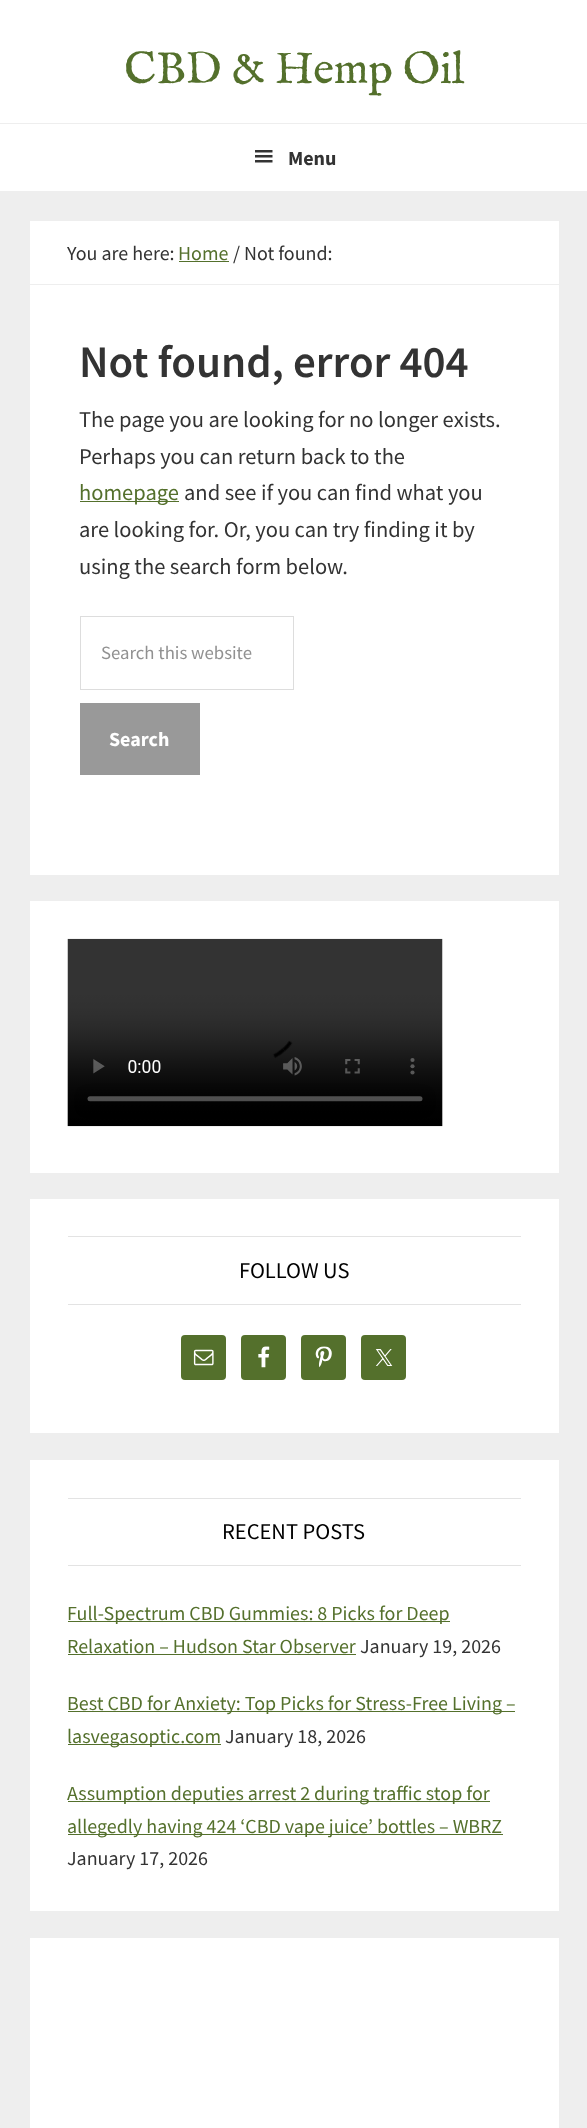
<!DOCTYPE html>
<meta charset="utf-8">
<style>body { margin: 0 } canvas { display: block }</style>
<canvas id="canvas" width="587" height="2128"></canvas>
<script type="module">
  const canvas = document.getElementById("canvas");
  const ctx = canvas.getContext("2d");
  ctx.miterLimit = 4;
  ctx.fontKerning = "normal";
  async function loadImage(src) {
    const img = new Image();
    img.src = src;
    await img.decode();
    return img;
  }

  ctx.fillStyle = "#eeeeee";
  ctx.fillRect(0, 0, 587, 2128);
  ctx.fillStyle = "#ffffff";
  ctx.fillRect(0, 0, 587, 123);
  ctx.font = "45px IM FELL English";
  ctx.fillStyle = "#54702c";
  ctx.fillText("CBD & Hemp Oil", 124, 83);
  ctx.fillStyle = "#ffffff";
  ctx.fillRect(0, 124, 587, 67);
  ctx.drawImage(await loadImage("img1.png"), 255, 150, 18, 13);
  ctx.font = "bold 20px Source Sans Pro";
  ctx.fillStyle = "#333333";
  ctx.fillText("Menu", 288, 165);
  ctx.fillStyle = "#ffffff";
  ctx.fillRect(30, 221, 529, 63);
  ctx.font = "20px Source Sans Pro";
  ctx.fillStyle = "#333333";
  ctx.fillText("You are here:", 67, 260);
  ctx.fillStyle = "#54702c";
  ctx.fillText("Home", 178, 260);
  ctx.fillRect(179, 261, 50, 1);
  ctx.fillStyle = "#333333";
  ctx.fillText("/ Not found:", 233, 260);
  ctx.fillStyle = "#ffffff";
  ctx.fillRect(30, 285, 529, 590);
  ctx.font = "600 45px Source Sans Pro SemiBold";
  ctx.fillStyle = "#333333";
  ctx.fillText("Not found, error 404", 79, 377);
  ctx.font = "22.5px Source Sans Pro";
  ctx.fillText("The page you are looking for no longer exists.", 79, 427);
  ctx.fillText("Perhaps you can return back to the", 79, 464);
  ctx.fillStyle = "#54702c";
  ctx.fillRect(80, 501, 99, 1);
  ctx.fillText("homepage", 79, 500);
  ctx.fillStyle = "#333333";
  ctx.fillText("and see if you can find what you", 184, 500);
  ctx.fillText("are looking for. Or, you can try finding it by", 79, 537);
  ctx.fillText("using the search form below.", 79, 574);
  ctx.strokeStyle = "#dddddd";
  ctx.strokeRect(80.5, 616.5, 213, 73);
  ctx.font = "18.75px Source Sans Pro";
  ctx.fillStyle = "#919191";
  ctx.fillText("Search this website", 101, 659);
  ctx.fillStyle = "#999999";
  ctx.fillRect(80, 703, 120, 72);
  ctx.font = "bold 20px Source Sans Pro";
  ctx.fillStyle = "#ffffff";
  ctx.fillText("Search", 109, 746);
  ctx.fillRect(30, 901, 529, 272);
  ctx.drawImage(await loadImage("img2.png"), 67, 938, 376, 189);
  ctx.fillRect(30, 1199, 529, 234);
  ctx.fillStyle = "#e3e3e3";
  ctx.fillRect(68, 1236, 453, 1);
  ctx.fillRect(68, 1304, 453, 1);
  ctx.font = "22.5px Source Sans Pro";
  ctx.fillStyle = "#000000";
  ctx.fillText("FOLLOW US", 239, 1278);
  ctx.fillStyle = "#54702c";
  ctx.beginPath();
  ctx.roundRect(181, 1335, 45, 45, 4);
  ctx.fill();
  ctx.drawImage(await loadImage("img3.png"), 193, 1349, 21, 17);
  ctx.beginPath();
  ctx.roundRect(241, 1335, 45, 45, 4);
  ctx.fill();
  ctx.drawImage(await loadImage("img4.png"), 258, 1346, 12, 22);
  ctx.beginPath();
  ctx.roundRect(301, 1335, 45, 45, 4);
  ctx.fill();
  ctx.drawImage(await loadImage("img5.png"), 315, 1346, 17, 22);
  ctx.beginPath();
  ctx.roundRect(361, 1335, 45, 45, 4);
  ctx.fill();
  ctx.drawImage(await loadImage("img6.png"), 375, 1349, 18, 17);
  ctx.fillStyle = "#ffffff";
  ctx.fillRect(30, 1460, 529, 451);
  ctx.fillStyle = "#e3e3e3";
  ctx.fillRect(68, 1498, 453, 1);
  ctx.fillRect(68, 1565, 453, 1);
  ctx.fillStyle = "#000000";
  ctx.fillText("RECENT POSTS", 222, 1539);
  ctx.fillStyle = "#54702c";
  ctx.fillRect(68, 1621, 382, 1);
  ctx.font = "20px Source Sans Pro";
  ctx.fillText("Full-Spectrum CBD Gummies: 8 Picks for Deep", 67, 1620);
  ctx.fillText("Relaxation – Hudson Star Observer", 67, 1653);
  ctx.fillRect(68, 1654, 288, 1);
  ctx.fillStyle = "#333333";
  ctx.fillText("January 19, 2026", 360, 1653);
  ctx.fillStyle = "#54702c";
  ctx.fillRect(68, 1711, 447, 1);
  ctx.fillText("Best CBD for Anxiety: Top Picks for Stress-Free Living –", 67, 1710);
  ctx.fillRect(68, 1744, 153, 1);
  ctx.fillText("lasvegasoptic.com", 67, 1743);
  ctx.fillStyle = "#333333";
  ctx.fillText("January 18, 2026", 225, 1743);
  ctx.fillStyle = "#54702c";
  ctx.fillRect(68, 1801, 422, 1);
  ctx.fillText("Assumption deputies arrest 2 during traffic stop for", 67, 1800);
  ctx.fillRect(68, 1834, 435, 1);
  ctx.fillText("allegedly having 424 ‘CBD vape juice’ bottles – WBRZ", 67, 1833);
  ctx.fillStyle = "#333333";
  ctx.fillText("January 17, 2026", 67, 1865);
  ctx.fillStyle = "#ffffff";
  ctx.fillRect(30, 1938, 529, 190);
</script>
